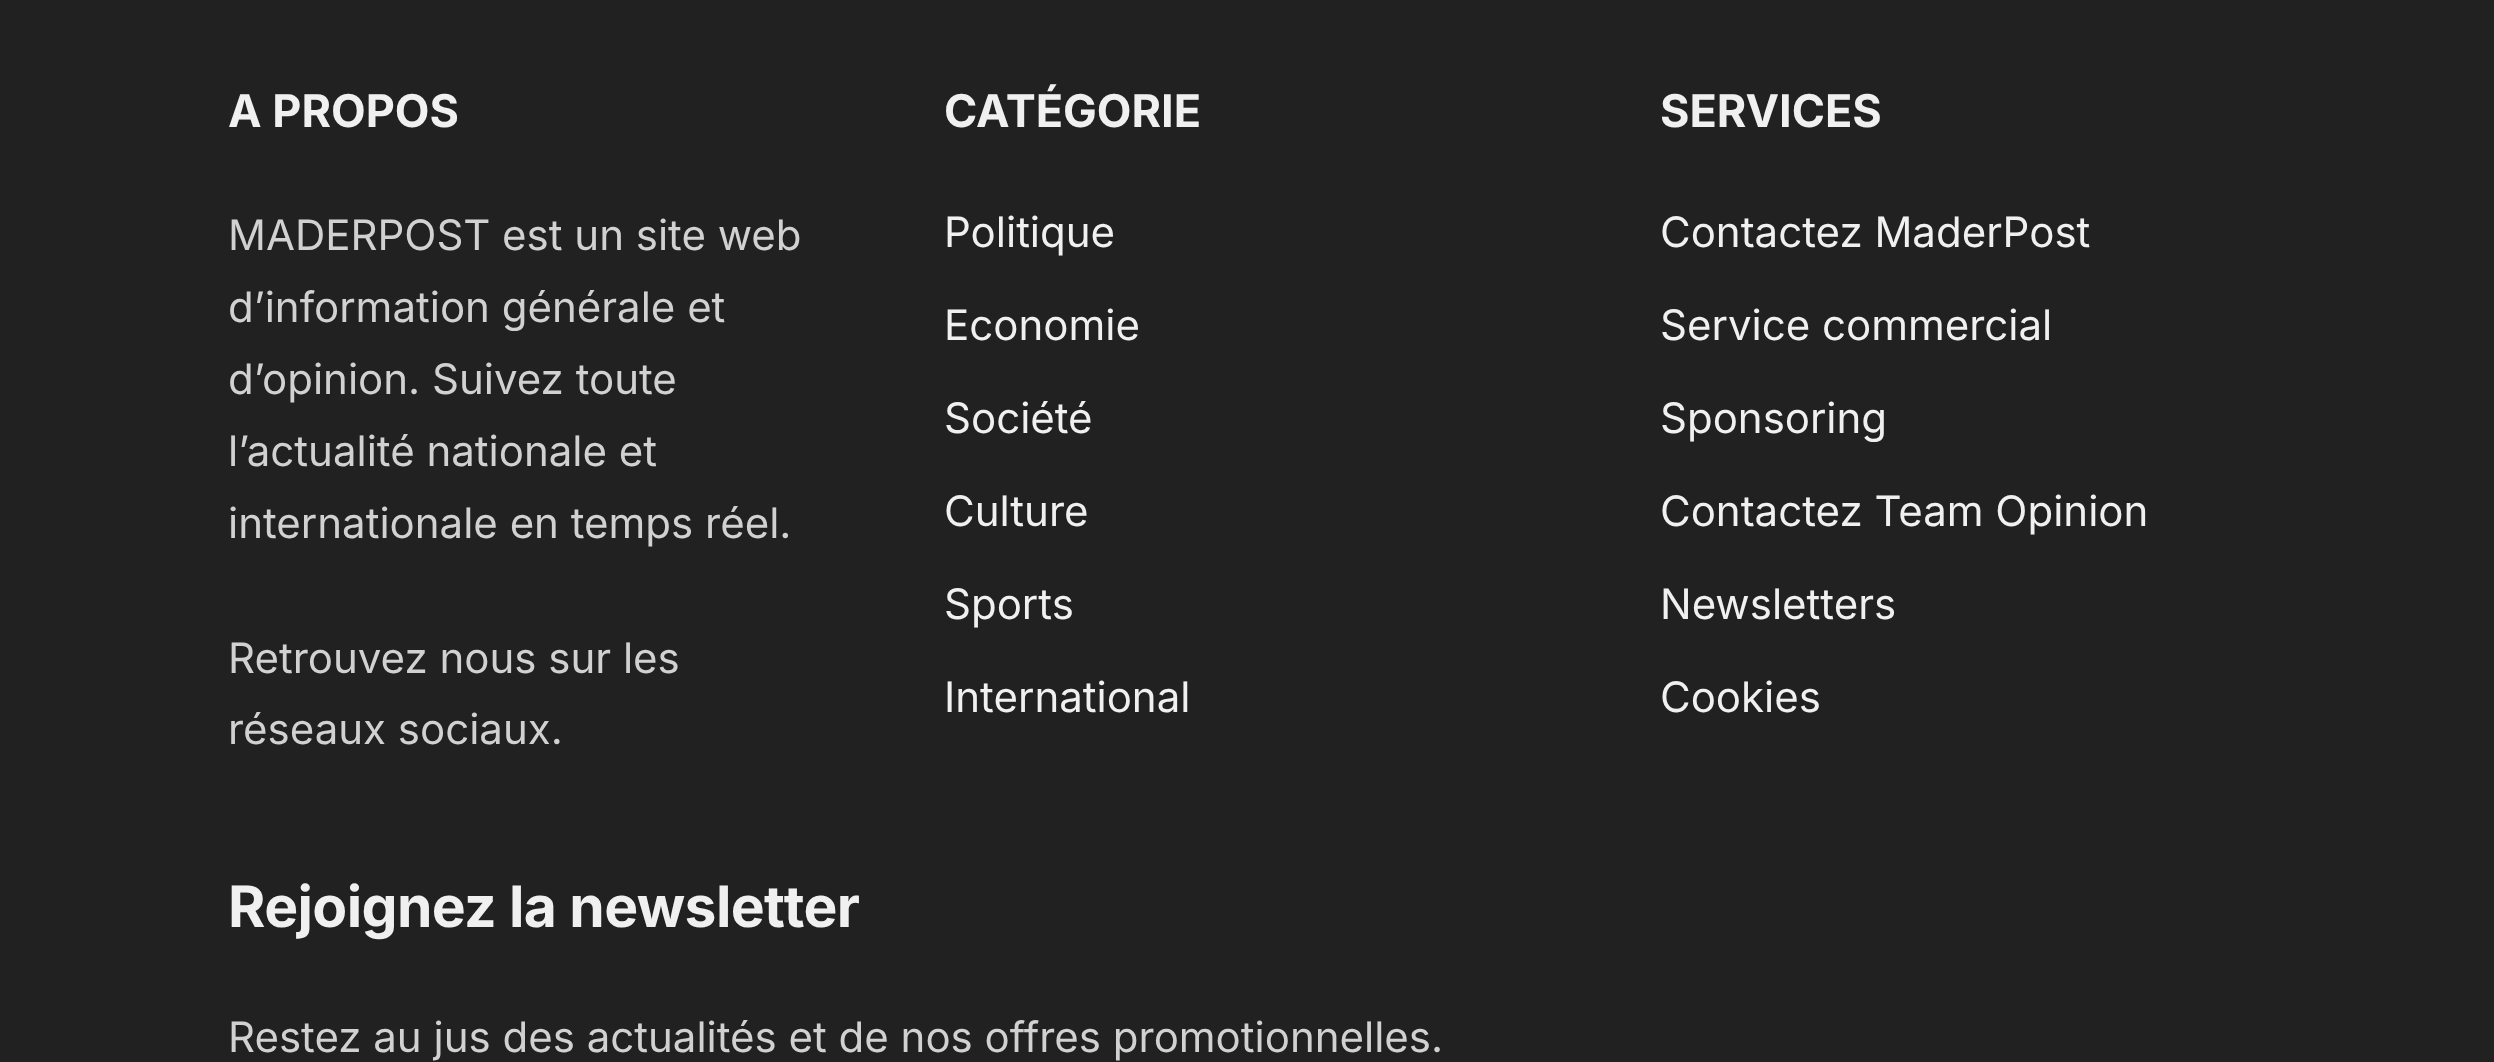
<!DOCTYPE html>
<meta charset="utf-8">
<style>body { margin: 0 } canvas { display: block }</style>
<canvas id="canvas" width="2494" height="1062"></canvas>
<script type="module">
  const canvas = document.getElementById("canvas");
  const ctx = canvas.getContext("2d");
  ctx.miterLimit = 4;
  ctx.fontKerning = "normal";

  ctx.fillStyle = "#212121";
  ctx.fillRect(0, 0, 2494, 1062);
  ctx.font = "bold 45px Inter";
  ctx.fillStyle = "#f0f0f0";
  ctx.fillText("A PROPOS", 228, 127);
  ctx.font = "42px Inter";
  ctx.fillStyle = "#d1d1d1";
  ctx.fillText("MADERPOST est un site web", 228, 250);
  ctx.fillText("d’information générale et", 228, 322);
  ctx.fillText("d’opinion. Suivez toute", 228, 394);
  ctx.fillText("l’actualité nationale et", 228, 466);
  ctx.fillText("internationale en temps réel.", 228, 538);
  ctx.fillText("Retrouvez nous sur les", 228, 673);
  ctx.fillText("réseaux sociaux.", 228, 744);
  ctx.font = "bold 45px Inter";
  ctx.fillStyle = "#f0f0f0";
  ctx.fillText("CATÉGORIE", 944, 127);
  ctx.font = "42px Inter";
  ctx.fillText("Politique", 944, 247);
  ctx.fillText("Economie", 944, 340);
  ctx.fillText("Société", 944, 433);
  ctx.fillText("Culture", 944, 526);
  ctx.fillText("Sports", 944, 619);
  ctx.fillText("International", 944, 712);
  ctx.font = "bold 45px Inter";
  ctx.fillText("SERVICES", 1660, 127);
  ctx.font = "42px Inter";
  ctx.fillText("Contactez MaderPost", 1660, 247);
  ctx.fillText("Service commercial", 1660, 340);
  ctx.fillText("Sponsoring", 1660, 433);
  ctx.fillText("Contactez Team Opinion", 1660, 526);
  ctx.fillText("Newsletters", 1660, 619);
  ctx.fillText("Cookies", 1660, 712);
  ctx.letterSpacing = "-0.6px";
  ctx.font = "bold 57px Inter";
  ctx.fillText("Rejoignez la newsletter", 228, 927);
  ctx.letterSpacing = "0px";
  ctx.font = "42px Inter";
  ctx.fillStyle = "#d1d1d1";
  ctx.fillText("Restez au jus des actualités et de nos offres promotionnelles.", 228, 1052);
</script>
